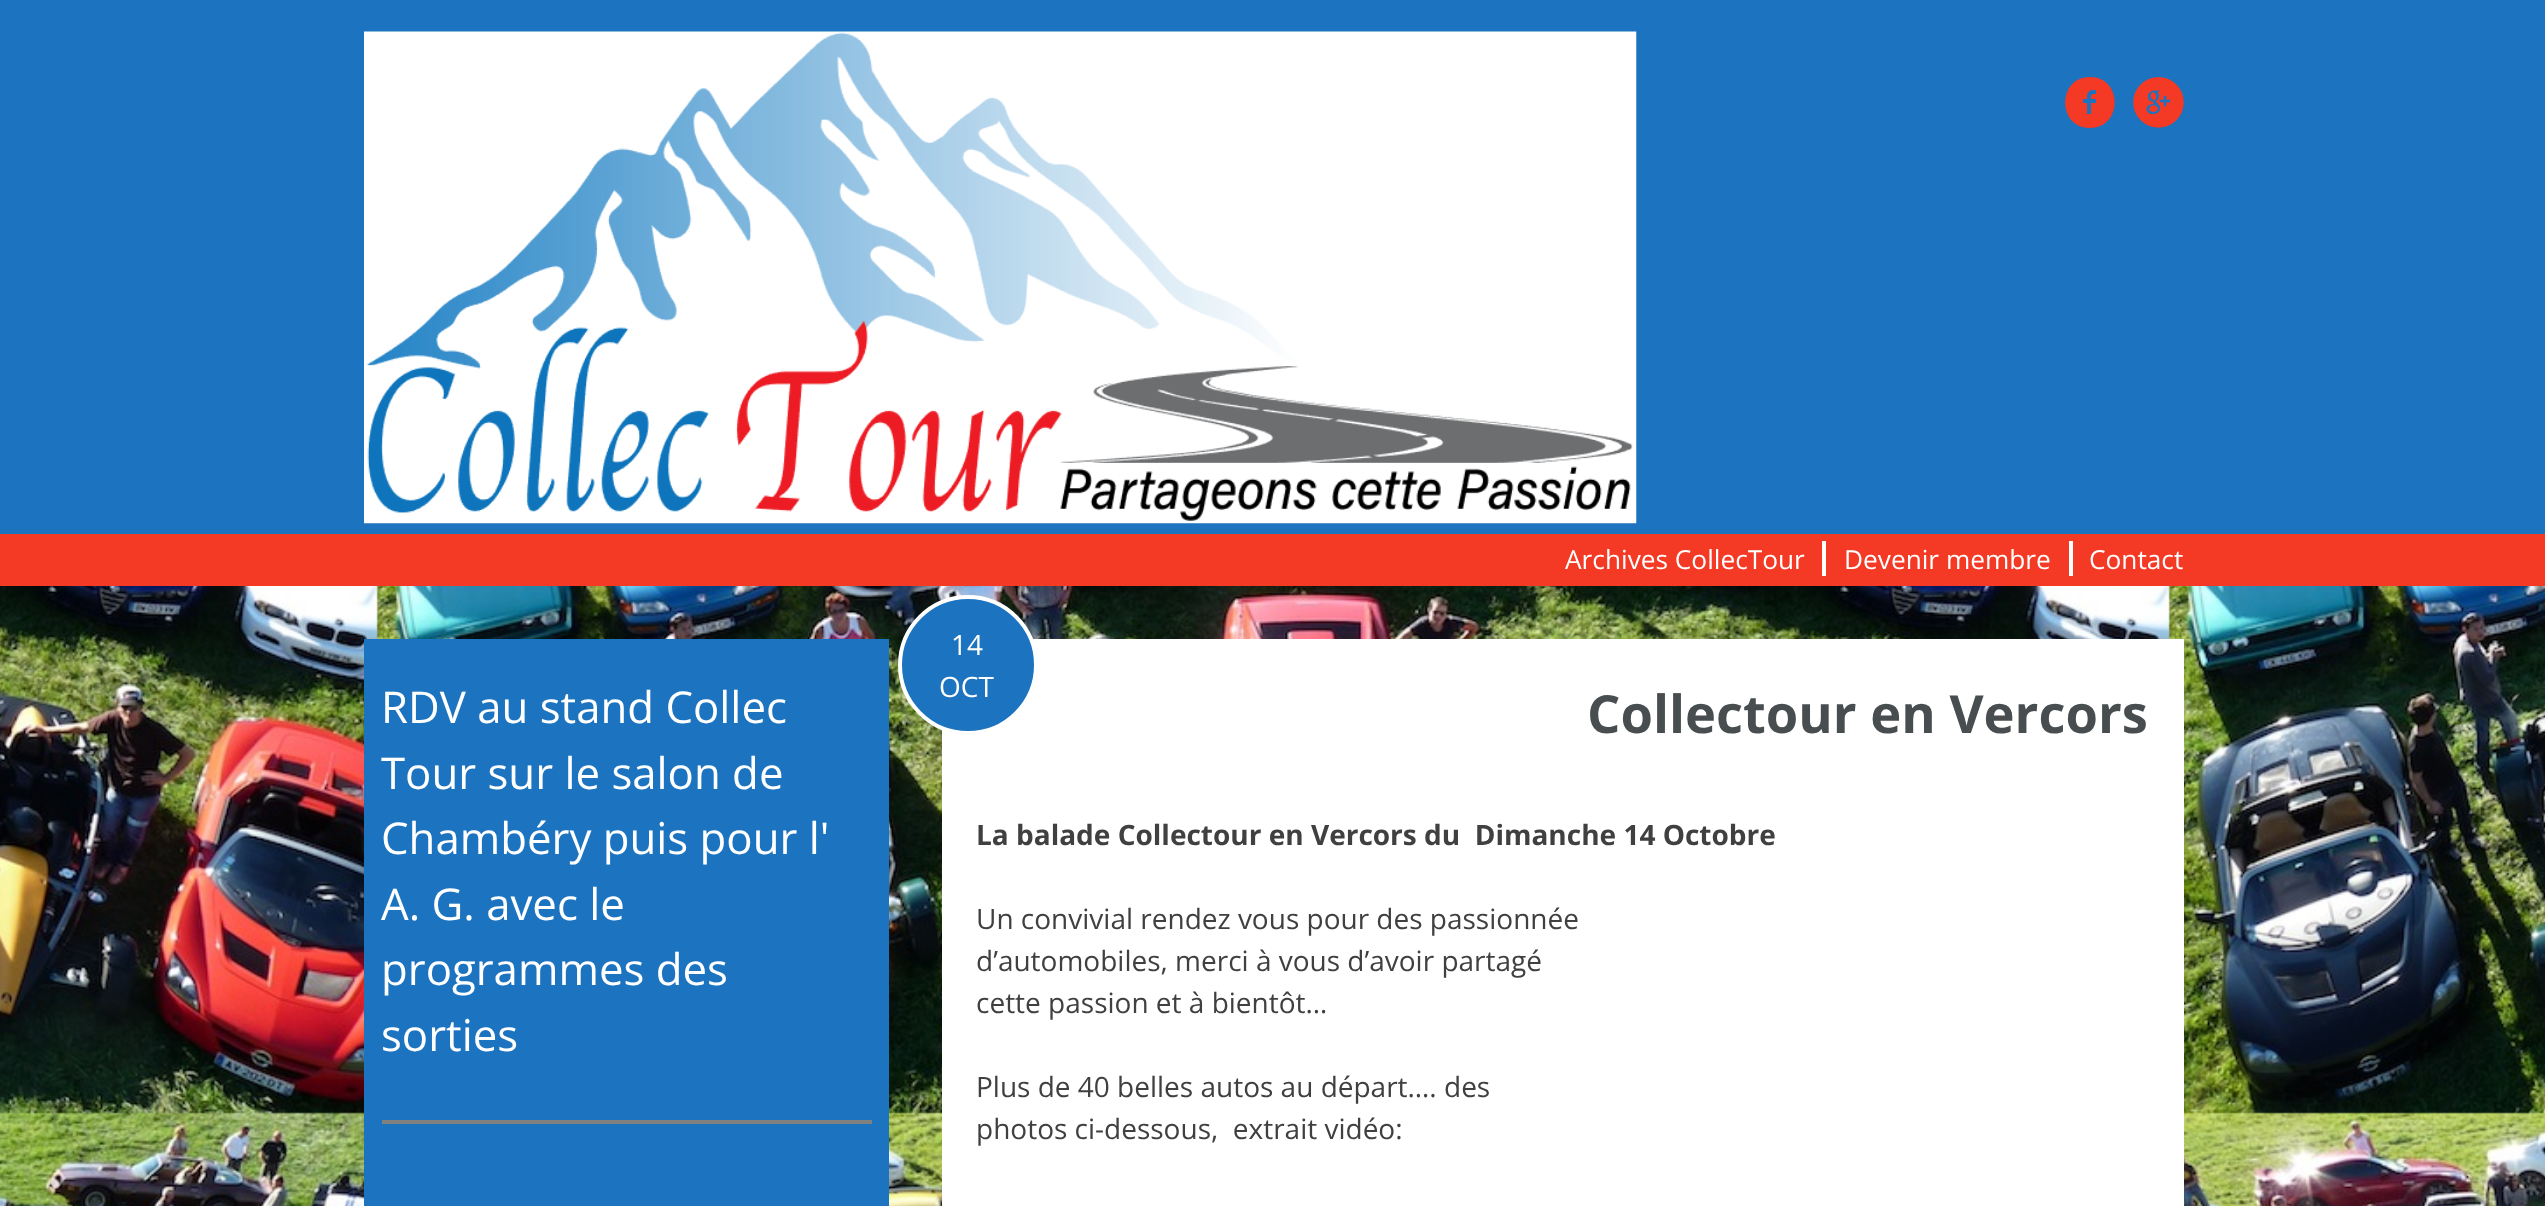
<!DOCTYPE html>
<meta charset="utf-8">
<style>body { margin: 0 } canvas { display: block }</style>
<canvas id="canvas" width="2545" height="1206"></canvas>
<script type="module">
  const canvas = document.getElementById("canvas");
  const ctx = canvas.getContext("2d");
  ctx.miterLimit = 4;
  ctx.fontKerning = "normal";
  async function loadImage(src) {
    const img = new Image();
    img.src = src;
    await img.decode();
    return img;
  }

  ctx.fillStyle = "#ffffff";
  ctx.fillRect(0, 0, 2545, 1206);
  ctx.drawImage(await loadImage("img1.png"), 0, 586, 2545, 620);
  ctx.fillStyle = "#1c73bf";
  ctx.fillRect(0, 0, 2545, 534);
  ctx.drawImage(await loadImage("img2.png"), 364, 31, 1273, 493);
  ctx.fillStyle = "#f43924";
  ctx.beginPath();
  ctx.moveTo(2090, 77);
  ctx.bezierCurveTo(2123, 77, 2123, 128, 2090, 128);
  ctx.bezierCurveTo(2057, 128, 2057, 77, 2090, 77);
  ctx.closePath();
  ctx.moveTo(2096, 94);
  ctx.lineTo(2096, 90);
  ctx.bezierCurveTo(2089, 90, 2087, 91, 2087, 99);
  ctx.lineTo(2083, 99);
  ctx.lineTo(2083, 103);
  ctx.lineTo(2087, 103);
  ctx.lineTo(2087, 114);
  ctx.lineTo(2091, 114);
  ctx.lineTo(2091, 103);
  ctx.lineTo(2096, 103);
  ctx.lineTo(2096, 99);
  ctx.lineTo(2091, 99);
  ctx.bezierCurveTo(2091, 94, 2091, 94, 2096, 94);
  ctx.closePath();
  ctx.fill();
  ctx.drawImage(await loadImage("img3.png"), 2133, 77, 51, 51);
  ctx.fillRect(0, 534, 2545, 52);
  ctx.font = "26.25px Open Sans";
  ctx.fillStyle = "#ffffff";
  ctx.fillText("Archives CollecTour", 1565, 569);
  ctx.fillRect(1822, 541, 4, 35);
  ctx.fillText("Devenir membre", 1844, 569);
  ctx.fillRect(2069, 541, 4, 35);
  ctx.fillText("Contact", 2089, 569);
  ctx.fillStyle = "#1c73bf";
  ctx.fillRect(364, 639, 525, 567);
  ctx.font = "43.75px Open Sans";
  ctx.fillStyle = "#ffffff";
  ctx.fillText("RDV au stand Collec", 381, 723);
  ctx.fillText("Tour sur le salon de", 381, 789);
  ctx.fillText("Chambéry puis pour l'", 381, 854);
  ctx.fillText("A. G. avec le", 381, 920);
  ctx.fillText("programmes des", 381, 985);
  ctx.fillText("sorties", 381, 1051);
  ctx.fillStyle = "#808080";
  ctx.fillRect(382, 1120, 490, 4);
  ctx.fillStyle = "#ffffff";
  ctx.fillRect(942, 639, 1242, 567);
  ctx.fillStyle = "#1c73bf";
  ctx.beginPath();
  ctx.arc(968, 665, 68, 0, Math.PI * 2);
  ctx.fill();
  ctx.strokeStyle = "#ffffff";
  ctx.lineWidth = 4;
  ctx.stroke();
  ctx.font = "28px Open Sans";
  ctx.fillStyle = "#ffffff";
  ctx.fillText("14", 951, 655);
  ctx.fillText("OCT", 939, 697);
  ctx.font = "bold 52.5px Open Sans";
  ctx.fillStyle = "#484d4f";
  ctx.fillText("Collectour en Vercors", 1587, 733);
  ctx.font = "bold 28px Open Sans";
  ctx.fillStyle = "#404040";
  ctx.fillText("La balade Collectour en Vercors du  Dimanche 14 Octobre", 976, 845);
  ctx.font = "28px Open Sans";
  ctx.fillText("Un convivial rendez vous pour des passionnée", 976, 929);
  ctx.fillText("d’automobiles, merci à vous d’avoir partagé", 976, 971);
  ctx.fillText("cette passion et à bientôt…", 976, 1013);
  ctx.fillText("Plus de 40 belles autos au départ…. des", 976, 1097);
  ctx.fillText("photos ci-dessous,  extrait vidéo:", 976, 1139);
</script>
